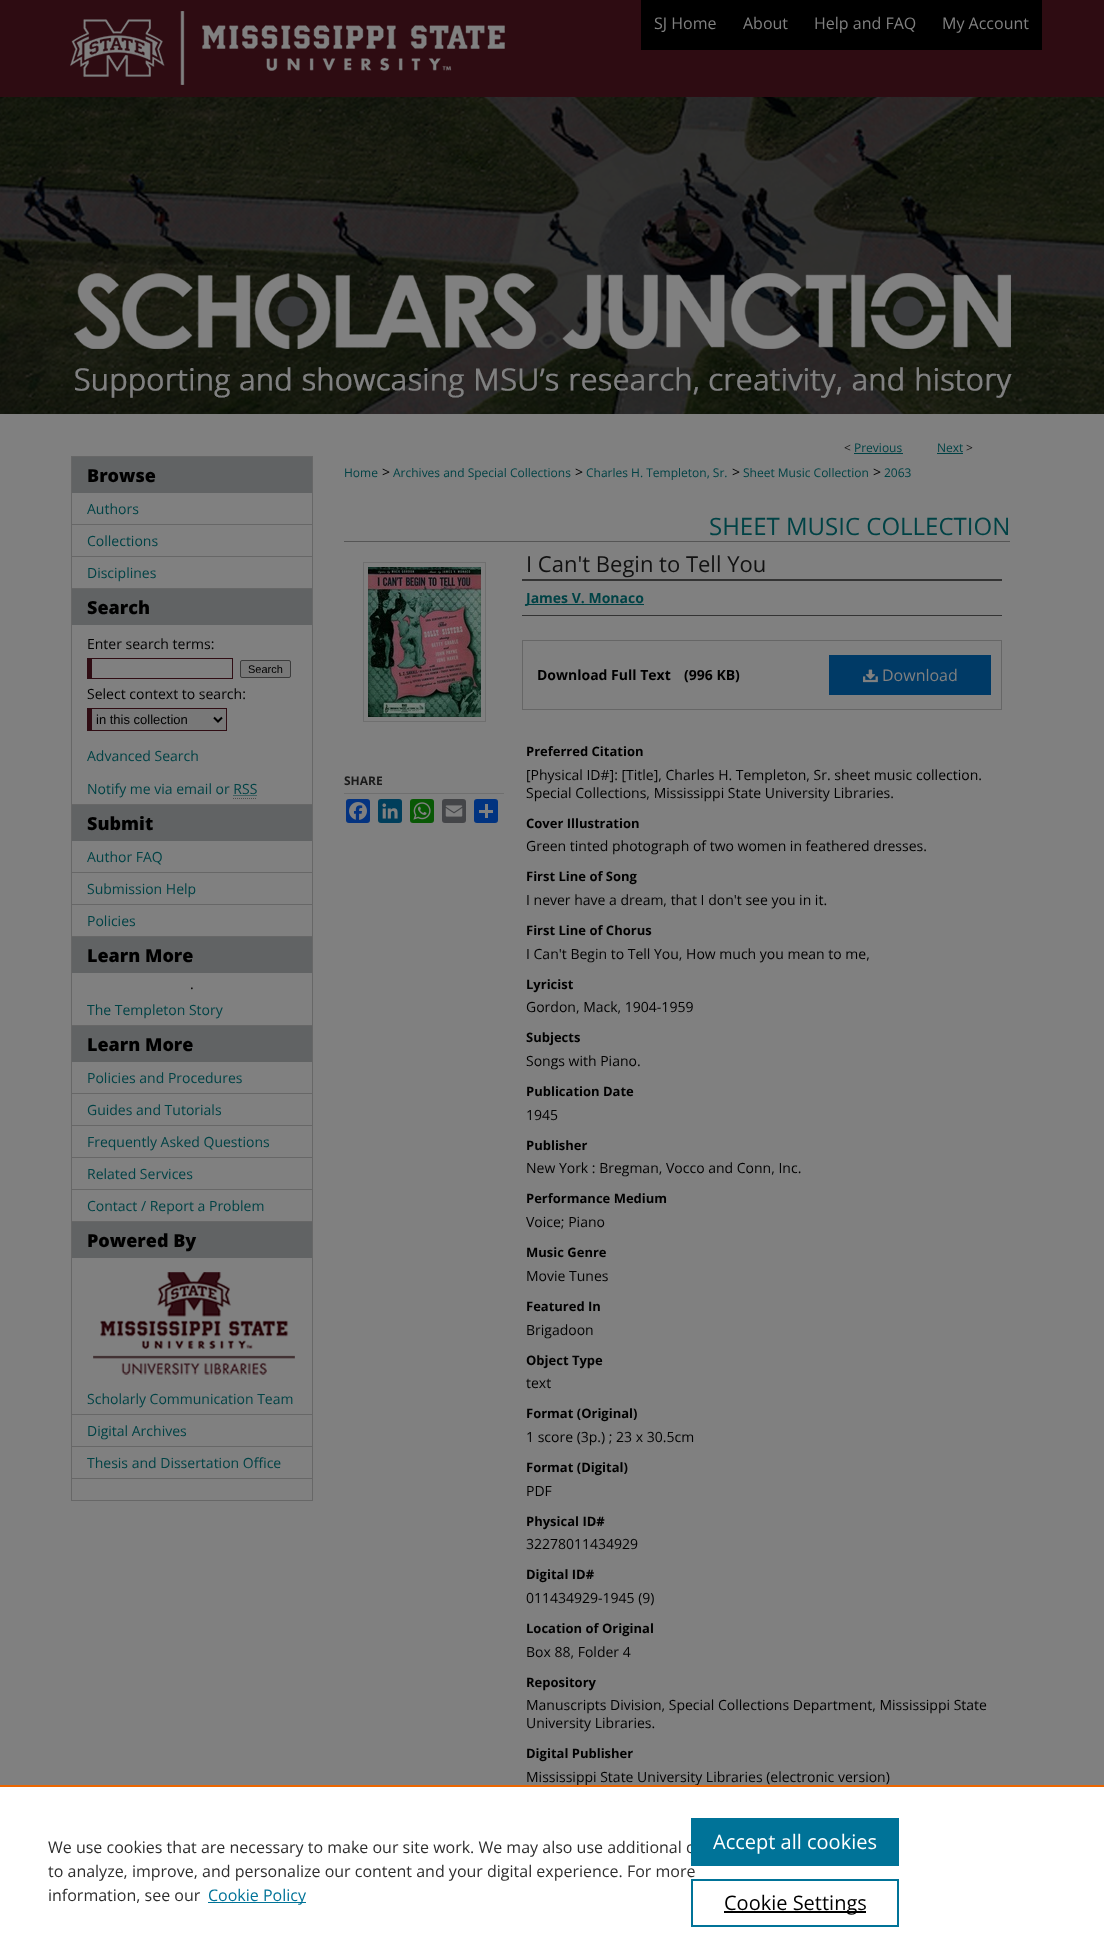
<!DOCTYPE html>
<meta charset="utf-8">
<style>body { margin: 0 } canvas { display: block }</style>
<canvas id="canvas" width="1104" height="1955"></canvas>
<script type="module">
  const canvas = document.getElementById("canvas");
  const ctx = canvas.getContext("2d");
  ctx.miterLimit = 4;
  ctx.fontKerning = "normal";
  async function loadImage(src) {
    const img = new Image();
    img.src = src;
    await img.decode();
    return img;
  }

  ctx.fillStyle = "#808080";
  ctx.fillRect(0, 0, 1104, 1955);
  ctx.drawImage(await loadImage("img1.png"), 0, 0, 1104, 414);
  ctx.drawImage(await loadImage("img2.png"), 62, 11, 980, 403);
  ctx.fillStyle = "#000000";
  ctx.fillRect(641, 0, 401, 50);
  ctx.font = "16px Open Sans";
  ctx.fillStyle = "#808080";
  ctx.fillText("SJ Home", 654, 29);
  ctx.fillText("About", 743, 29);
  ctx.fillText("Help and FAQ", 814, 29);
  ctx.fillText("My Account", 942, 29);
  ctx.fillStyle = "#616364";
  ctx.fillRect(72, 457, 240, 36);
  ctx.fillStyle = "#676767";
  ctx.fillRect(72, 524, 240, 1);
  ctx.fillRect(72, 556, 240, 1);
  ctx.fillRect(72, 588, 240, 1);
  ctx.fillStyle = "#616364";
  ctx.fillRect(72, 589, 240, 36);
  ctx.fillStyle = "#676767";
  ctx.fillRect(72, 804, 240, 1);
  ctx.beginPath();
  ctx.moveTo(233.5, 795.5);
  ctx.lineTo(257.5, 795.5);
  ctx.strokeStyle = "#004245";
  ctx.setLineDash([1, 1]);
  ctx.stroke();
  ctx.beginPath();
  ctx.moveTo(233, 798.5);
  ctx.lineTo(257, 798.5);
  ctx.strokeStyle = "#4d4d4d";
  ctx.stroke();
  ctx.fillStyle = "#616364";
  ctx.fillRect(72, 805, 240, 36);
  ctx.fillStyle = "#676767";
  ctx.fillRect(72, 872, 240, 1);
  ctx.fillRect(72, 904, 240, 1);
  ctx.fillRect(72, 936, 240, 1);
  ctx.fillStyle = "#616364";
  ctx.fillRect(72, 937, 240, 36);
  ctx.fillStyle = "#676767";
  ctx.fillRect(72, 1025, 240, 1);
  ctx.fillStyle = "#616364";
  ctx.fillRect(72, 1026, 240, 36);
  ctx.fillStyle = "#676767";
  ctx.fillRect(72, 1093, 240, 1);
  ctx.fillRect(72, 1125, 240, 1);
  ctx.fillRect(72, 1157, 240, 1);
  ctx.fillRect(72, 1189, 240, 1);
  ctx.fillRect(72, 1221, 240, 1);
  ctx.fillStyle = "#616364";
  ctx.fillRect(72, 1222, 240, 36);
  ctx.drawImage(await loadImage("img3.png"), 93, 1272, 202, 103);
  ctx.fillStyle = "#676767";
  ctx.fillRect(72, 1414, 240, 1);
  ctx.fillRect(72, 1446, 240, 1);
  ctx.fillRect(72, 1478, 240, 1);
  ctx.strokeStyle = "#676767";
  ctx.setLineDash([]);
  ctx.strokeRect(71.5, 456.5, 241, 1044);
  ctx.font = "800 18px Open Sans";
  ctx.fillStyle = "#000000";
  ctx.fillText("Browse", 87, 482);
  ctx.font = "14px Open Sans";
  ctx.fillStyle = "#004245";
  ctx.fillText("Authors", 87, 514);
  ctx.fillText("Collections", 87, 546);
  ctx.fillText("Disciplines", 87, 578);
  ctx.font = "800 18px Open Sans";
  ctx.fillStyle = "#000000";
  ctx.fillText("Search", 87, 614);
  ctx.font = "14px Open Sans";
  ctx.fillText("Enter search terms:", 87, 649);
  ctx.fillStyle = "#2f0c13";
  ctx.fillRect(87, 658, 146, 1);
  ctx.fillRect(232, 658, 1, 21);
  ctx.fillRect(87, 678, 146, 1);
  ctx.fillRect(87, 658, 5, 21);
  ctx.fillStyle = "#787878";
  ctx.beginPath();
  ctx.roundRect(240.5, 660.5, 50, 17, 1.5);
  ctx.fill();
  ctx.strokeStyle = "#3b3b3b";
  ctx.stroke();
  ctx.font = "11px Liberation Sans";
  ctx.fillStyle = "#000000";
  ctx.fillText("Search", 248, 673);
  ctx.font = "14px Open Sans";
  ctx.fillText("Select context to search:", 87, 699);
  ctx.fillStyle = "#787878";
  ctx.fillRect(92, 709, 134, 21);
  ctx.fillStyle = "#2f0c13";
  ctx.fillRect(87, 708, 140, 1);
  ctx.fillRect(226, 708, 1, 23);
  ctx.fillRect(87, 730, 140, 1);
  ctx.fillRect(87, 708, 5, 23);
  ctx.beginPath();
  ctx.moveTo(214, 717.5);
  ctx.lineTo(218, 721.5);
  ctx.lineTo(222, 717.5);
  ctx.strokeStyle = "#000000";
  ctx.lineWidth = 2;
  ctx.stroke();
  ctx.font = "13px Liberation Sans";
  ctx.fillStyle = "#000000";
  ctx.fillText("in this collection", 96, 724);
  ctx.font = "14px Open Sans";
  ctx.fillStyle = "#004245";
  ctx.fillText("Advanced Search", 87, 761);
  ctx.fillText("Notify me via email or RSS", 87, 794);
  ctx.font = "800 18px Open Sans";
  ctx.fillStyle = "#000000";
  ctx.fillText("Submit", 87, 830);
  ctx.font = "14px Open Sans";
  ctx.fillStyle = "#004245";
  ctx.fillText("Author FAQ", 87, 862);
  ctx.fillText("Submission Help", 87, 894);
  ctx.fillText("Policies", 87, 926);
  ctx.font = "800 18px Open Sans";
  ctx.fillStyle = "#000000";
  ctx.fillText("Learn More", 87, 962);
  ctx.font = "14px Open Sans";
  ctx.fillText(".", 190, 989);
  ctx.fillStyle = "#004245";
  ctx.fillText("The Templeton Story", 87, 1015);
  ctx.font = "800 18px Open Sans";
  ctx.fillStyle = "#000000";
  ctx.fillText("Learn More", 87, 1051);
  ctx.font = "14px Open Sans";
  ctx.fillStyle = "#004245";
  ctx.fillText("Policies and Procedures", 87, 1083);
  ctx.fillText("Guides and Tutorials", 87, 1115);
  ctx.fillText("Frequently Asked Questions", 87, 1147);
  ctx.fillText("Related Services", 87, 1179);
  ctx.fillText("Contact / Report a Problem", 87, 1211);
  ctx.font = "800 18px Open Sans";
  ctx.fillStyle = "#000000";
  ctx.fillText("Powered By", 87, 1247);
  ctx.font = "14px Open Sans";
  ctx.fillStyle = "#004245";
  ctx.fillText("Scholarly Communication Team", 87, 1404);
  ctx.fillText("Digital Archives", 87, 1436);
  ctx.fillText("Thesis and Dissertation Office", 87, 1468);
  ctx.font = "12px Open Sans";
  ctx.fillStyle = "#111111";
  ctx.fillText("<", 844, 452);
  ctx.fillStyle = "#004245";
  ctx.fillText("Previous", 854, 452);
  ctx.fillRect(854, 453, 49, 1);
  ctx.fillText("Next", 937, 452);
  ctx.fillRect(937, 453, 26, 1);
  ctx.fillStyle = "#111111";
  ctx.fillText(">", 966, 452);
  ctx.fillStyle = "#004245";
  ctx.fillText("Home", 344, 477);
  ctx.font = "14px Open Sans";
  ctx.fillStyle = "#000000";
  ctx.fillText(">", 382, 477);
  ctx.font = "12px Open Sans";
  ctx.fillStyle = "#004245";
  ctx.fillText("Archives and Special Collections", 393, 477);
  ctx.font = "14px Open Sans";
  ctx.fillStyle = "#000000";
  ctx.fillText(">", 575, 477);
  ctx.font = "12px Open Sans";
  ctx.fillStyle = "#004245";
  ctx.fillText("Charles H. Templeton, Sr.", 586, 477);
  ctx.font = "14px Open Sans";
  ctx.fillStyle = "#000000";
  ctx.fillText(">", 732, 477);
  ctx.font = "12px Open Sans";
  ctx.fillStyle = "#004245";
  ctx.fillText("Sheet Music Collection", 743, 477);
  ctx.font = "14px Open Sans";
  ctx.fillStyle = "#000000";
  ctx.fillText(">", 873, 477);
  ctx.font = "12px Open Sans";
  ctx.fillStyle = "#004245";
  ctx.fillText("2063", 884, 477);
  ctx.font = "24px Open Sans";
  ctx.fillText("SHEET MUSIC COLLECTION", 709, 535);
  ctx.strokeStyle = "#6f6f6f";
  ctx.lineWidth = 1;
  ctx.strokeRect(363.5, 562.5, 122, 159);
  ctx.drawImage(await loadImage("img4.png"), 368, 567, 113, 150);
  ctx.fillStyle = "#6f6f6f";
  ctx.fillRect(344, 793, 160, 1);
  ctx.font = "bold 12px Open Sans";
  ctx.fillStyle = "#1a1a1a";
  ctx.fillText("SHARE", 344, 785);
  ctx.fillStyle = "#043380";
  ctx.beginPath();
  ctx.roundRect(346, 799, 24, 24, 3);
  ctx.fill();
  ctx.drawImage(await loadImage("img5.png"), 349, 802, 18, 18);
  ctx.fillStyle = "#003e5b";
  ctx.beginPath();
  ctx.roundRect(378, 799, 24, 24, 3);
  ctx.fill();
  ctx.drawImage(await loadImage("img6.png"), 382, 803, 16, 16);
  ctx.fillStyle = "#095805";
  ctx.beginPath();
  ctx.roundRect(410, 799, 24, 24, 3);
  ctx.fill();
  ctx.drawImage(await loadImage("img7.png"), 413, 802, 18, 18);
  ctx.fillStyle = "#444548";
  ctx.beginPath();
  ctx.roundRect(442, 799, 24, 24, 3);
  ctx.fill();
  ctx.drawImage(await loadImage("img8.png"), 445, 805, 18, 12);
  ctx.fillStyle = "#013380";
  ctx.beginPath();
  ctx.roundRect(474, 799, 24, 24, 3);
  ctx.fill();
  ctx.fillStyle = "#808080";
  ctx.fillRect(485, 804, 3, 14);
  ctx.fillRect(479, 810, 14, 3);
  ctx.fillStyle = "#555555";
  ctx.fillRect(344, 541, 666, 1);
  ctx.font = "22px Open Sans";
  ctx.fillStyle = "#111111";
  ctx.fillText("I Can't Begin to Tell You", 526, 572);
  ctx.fillStyle = "#333333";
  ctx.fillRect(522, 579, 480, 2);
  ctx.fillRect(522, 615, 480, 1);
  ctx.fillStyle = "#004245";
  ctx.fillRect(526, 604, 118, 1);
  ctx.font = "bold 14px Open Sans";
  ctx.fillText("James V. Monaco", 526, 603);
  ctx.strokeStyle = "#666666";
  ctx.strokeRect(522.5, 640.5, 479, 69);
  ctx.fillStyle = "#000000";
  ctx.fillText("Download Full Text", 537, 680);
  ctx.fillText("(996 KB)", 684, 680);
  ctx.fillStyle = "#003a66";
  ctx.fillRect(829, 655, 162, 40);
  ctx.drawImage(await loadImage("img9.png"), 863, 669, 15, 14);
  ctx.font = "16px Open Sans";
  ctx.fillStyle = "#808080";
  ctx.fillText("Download", 882, 681);
  ctx.font = "bold 13px Open Sans";
  ctx.fillStyle = "#000000";
  ctx.fillText("Preferred Citation", 526, 756);
  ctx.font = "14px Open Sans";
  ctx.fillText("[Physical ID#]: [Title], Charles H. Templeton, Sr. sheet music collection.", 526, 780);
  ctx.fillText("Special Collections, Mississippi State University Libraries.", 526, 798);
  ctx.font = "bold 13px Open Sans";
  ctx.fillText("Cover Illustration", 526, 828);
  ctx.font = "14px Open Sans";
  ctx.fillText("Green tinted photograph of two women in feathered dresses.", 526, 851);
  ctx.font = "bold 13px Open Sans";
  ctx.fillText("First Line of Song", 526, 881);
  ctx.font = "14px Open Sans";
  ctx.fillText("I never have a dream, that I don't see you in it.", 526, 905);
  ctx.font = "bold 13px Open Sans";
  ctx.fillText("First Line of Chorus", 526, 935);
  ctx.font = "14px Open Sans";
  ctx.fillText("I Can't Begin to Tell You, How much you mean to me,", 526, 959);
  ctx.font = "bold 13px Open Sans";
  ctx.fillText("Lyricist", 526, 989);
  ctx.font = "14px Open Sans";
  ctx.fillText("Gordon, Mack, 1904-1959", 526, 1012);
  ctx.font = "bold 13px Open Sans";
  ctx.fillText("Subjects", 526, 1042);
  ctx.font = "14px Open Sans";
  ctx.fillText("Songs with Piano.", 526, 1066);
  ctx.font = "bold 13px Open Sans";
  ctx.fillText("Publication Date", 526, 1096);
  ctx.font = "14px Open Sans";
  ctx.fillText("1945", 526, 1120);
  ctx.font = "bold 13px Open Sans";
  ctx.fillText("Publisher", 526, 1150);
  ctx.font = "14px Open Sans";
  ctx.fillText("New York : Bregman, Vocco and Conn, Inc.", 526, 1173);
  ctx.font = "bold 13px Open Sans";
  ctx.fillText("Performance Medium", 526, 1203);
  ctx.font = "14px Open Sans";
  ctx.fillText("Voice; Piano", 526, 1227);
  ctx.font = "bold 13px Open Sans";
  ctx.fillText("Music Genre", 526, 1257);
  ctx.font = "14px Open Sans";
  ctx.fillText("Movie Tunes", 526, 1281);
  ctx.font = "bold 13px Open Sans";
  ctx.fillText("Featured In", 526, 1311);
  ctx.font = "14px Open Sans";
  ctx.fillText("Brigadoon", 526, 1335);
  ctx.font = "bold 13px Open Sans";
  ctx.fillText("Object Type", 526, 1365);
  ctx.font = "14px Open Sans";
  ctx.fillText("text", 526, 1388);
  ctx.font = "bold 13px Open Sans";
  ctx.fillText("Format (Original)", 526, 1418);
  ctx.font = "14px Open Sans";
  ctx.fillText("1 score (3p.) ; 23 x 30.5cm", 526, 1442);
  ctx.font = "bold 13px Open Sans";
  ctx.fillText("Format (Digital)", 526, 1472);
  ctx.font = "14px Open Sans";
  ctx.fillText("PDF", 526, 1496);
  ctx.font = "bold 13px Open Sans";
  ctx.fillText("Physical ID#", 526, 1526);
  ctx.font = "14px Open Sans";
  ctx.fillText("32278011434929", 526, 1549);
  ctx.font = "bold 13px Open Sans";
  ctx.fillText("Digital ID#", 526, 1579);
  ctx.font = "14px Open Sans";
  ctx.fillText("011434929-1945 (9)", 526, 1603);
  ctx.font = "bold 13px Open Sans";
  ctx.fillText("Location of Original", 526, 1633);
  ctx.font = "14px Open Sans";
  ctx.fillText("Box 88, Folder 4", 526, 1657);
  ctx.font = "bold 13px Open Sans";
  ctx.fillText("Repository", 526, 1687);
  ctx.font = "14px Open Sans";
  ctx.fillText("Manuscripts Division, Special Collections Department, Mississippi State", 526, 1710);
  ctx.fillText("University Libraries.", 526, 1728);
  ctx.font = "bold 13px Open Sans";
  ctx.fillText("Digital Publisher", 526, 1758);
  ctx.font = "14px Open Sans";
  ctx.fillText("Mississippi State University Libraries (electronic version)", 526, 1782);
  ctx.fillStyle = "#ffffff";
  ctx.fillRect(0, 1787, 1104, 168);
  ctx.fillStyle = "#eb6500";
  ctx.fillRect(0, 1785, 1104, 2);
  ctx.font = "16px Open Sans";
  ctx.fillStyle = "#2e2e2e";
  ctx.fillText("We use cookies that are necessary to make our site work. We may also use additional c", 48, 1853);
  ctx.fillText("to analyze, improve, and personalize our content and your digital experience. For more", 48, 1877);
  ctx.fillText("information, see our", 48, 1901);
  ctx.fillStyle = "#007398";
  ctx.fillRect(208, 1902, 98, 1);
  ctx.fillText("Cookie Policy", 208, 1901);
  ctx.fillRect(691, 1818, 208, 48);
  ctx.font = "20px Open Sans";
  ctx.fillStyle = "#ffffff";
  ctx.fillText("Accept all cookies", 713, 1849);
  ctx.strokeStyle = "#007398";
  ctx.lineWidth = 2;
  ctx.strokeRect(692, 1880, 206, 46);
  ctx.fillStyle = "#000000";
  ctx.fillRect(724, 1911, 142, 2);
  ctx.fillText("Cookie Settings", 724, 1910);
</script>
